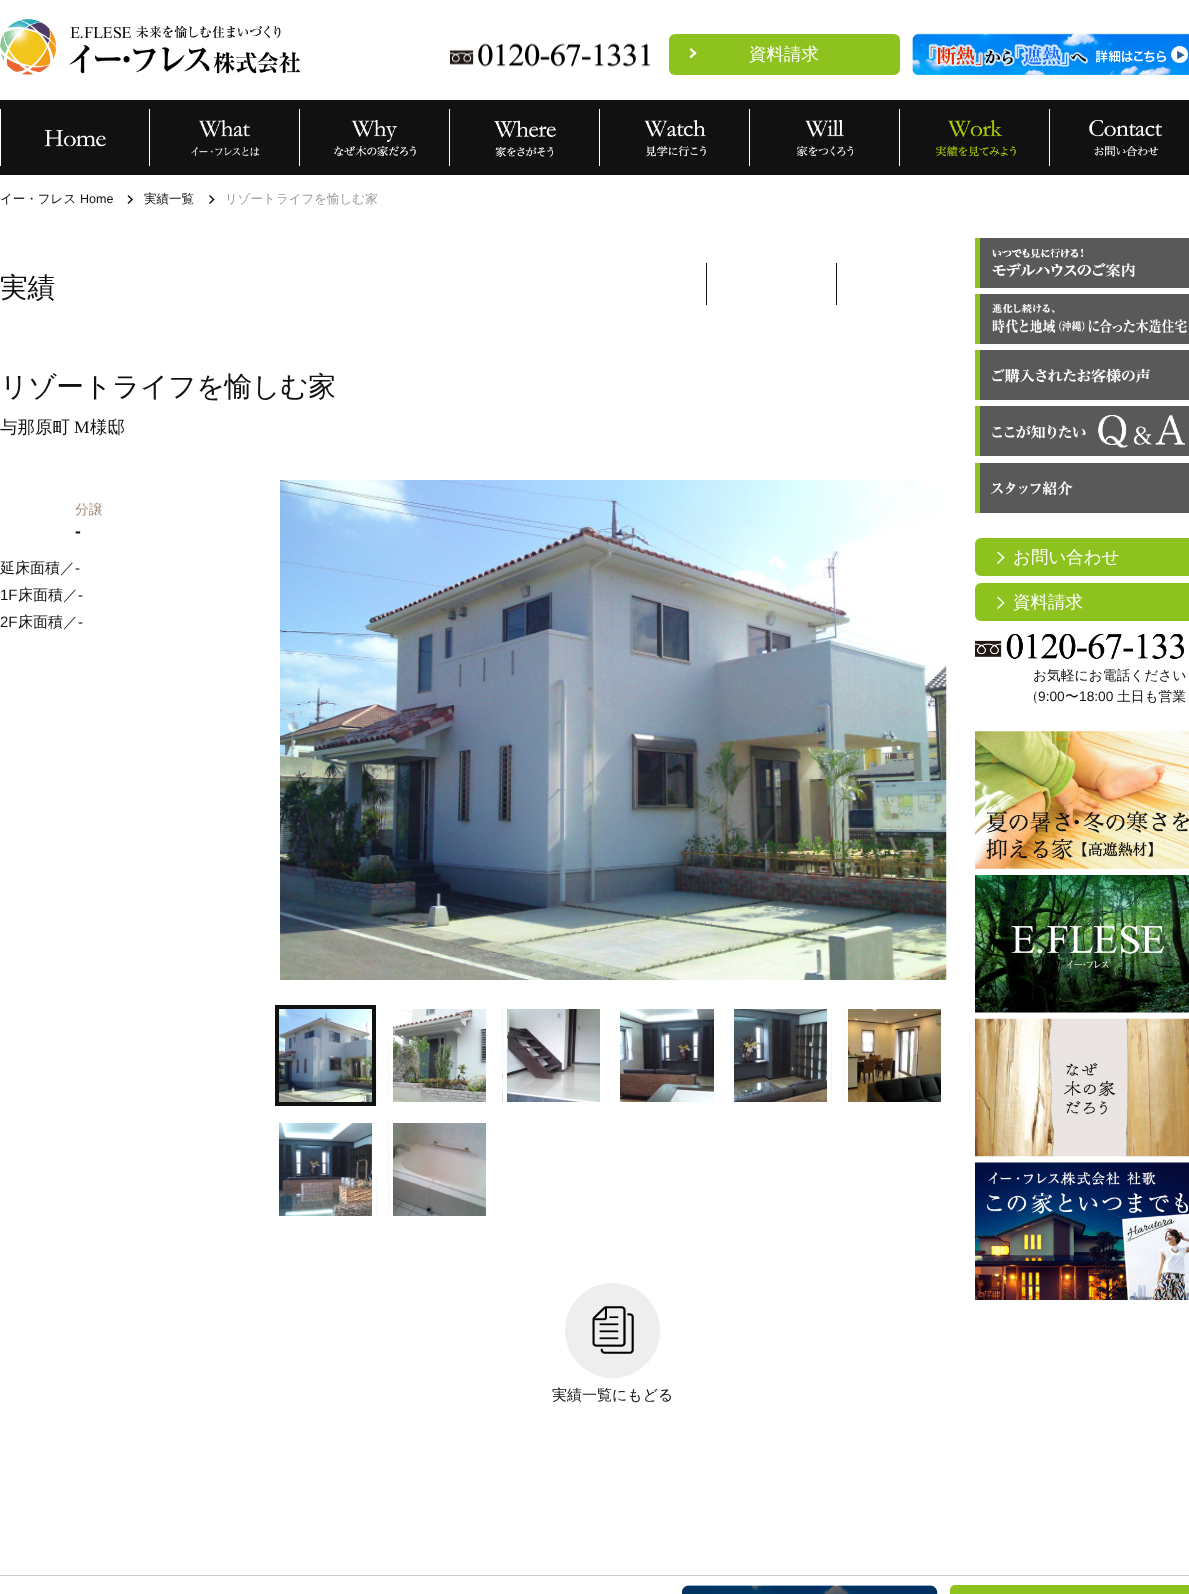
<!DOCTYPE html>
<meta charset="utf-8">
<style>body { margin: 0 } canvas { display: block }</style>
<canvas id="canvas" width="1189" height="1594"></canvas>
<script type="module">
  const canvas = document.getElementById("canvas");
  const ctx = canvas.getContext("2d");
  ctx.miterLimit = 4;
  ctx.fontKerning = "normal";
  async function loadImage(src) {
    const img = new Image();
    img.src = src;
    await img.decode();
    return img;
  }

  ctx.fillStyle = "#ffffff";
  ctx.fillRect(0, 0, 1189, 1594);
  ctx.drawImage(await loadImage("img1.png"), 0, 18, 300, 57);
  ctx.drawImage(await loadImage("img2.png"), 450, 43, 200, 24);
  ctx.fillStyle = "#8dc21f";
  ctx.beginPath();
  ctx.roundRect(669, 34, 231, 41, 6);
  ctx.fill();
  ctx.fillStyle = "#ffffff";
  ctx.beginPath();
  ctx.moveTo(691, 48);
  ctx.lineTo(696.5, 53);
  ctx.lineTo(695, 55);
  ctx.lineTo(689.5, 49.5);
  ctx.closePath();
  ctx.fill();
  ctx.beginPath();
  ctx.moveTo(695, 51.5);
  ctx.lineTo(696.5, 53);
  ctx.lineTo(691, 58.5);
  ctx.lineTo(689.5, 56.5);
  ctx.closePath();
  ctx.fill();
  ctx.font = "500 17.5px WenQuanYi Zen Hei";
  ctx.fillText("資料請求", 749, 60);
  ctx.drawImage(await loadImage("img3.png"), 912, 33, 277, 42);
  ctx.fillStyle = "#111111";
  ctx.fillRect(0, 100, 1189, 75);
  ctx.fillStyle = "#ffffff";
  ctx.fillRect(0, 109, 1, 57);
  ctx.drawImage(await loadImage("img4.png"), 44, 130, 62, 17);
  ctx.fillRect(149, 109, 1, 57);
  ctx.drawImage(await loadImage("img5.png"), 191, 120, 69, 37);
  ctx.fillRect(299, 109, 1, 57);
  ctx.drawImage(await loadImage("img6.png"), 334, 120, 82, 37);
  ctx.fillRect(449, 109, 1, 57);
  ctx.drawImage(await loadImage("img7.png"), 494, 120, 62, 37);
  ctx.fillRect(599, 109, 1, 57);
  ctx.drawImage(await loadImage("img8.png"), 644, 120, 62, 37);
  ctx.fillRect(749, 109, 1, 57);
  ctx.drawImage(await loadImage("img9.png"), 797, 120, 56, 37);
  ctx.fillRect(899, 109, 1, 57);
  ctx.drawImage(await loadImage("img10.png"), 935, 120, 81, 37);
  ctx.fillRect(1049, 109, 1, 57);
  ctx.drawImage(await loadImage("img11.png"), 1089, 120, 73, 37);
  ctx.font = "500 12.5px WenQuanYi Zen Hei";
  ctx.fillStyle = "#111111";
  ctx.fillText("イー・フレス", 0, 203);
  ctx.font = "12.5px Liberation Sans";
  ctx.fillText("Home", 80, 203);
  ctx.beginPath();
  ctx.moveTo(128.5, 195);
  ctx.lineTo(133, 199.5);
  ctx.lineTo(132, 200.5);
  ctx.lineTo(127.5, 196);
  ctx.closePath();
  ctx.fill();
  ctx.beginPath();
  ctx.moveTo(132, 198.5);
  ctx.lineTo(133, 199.5);
  ctx.lineTo(128.5, 204);
  ctx.lineTo(127.5, 203);
  ctx.closePath();
  ctx.fill();
  ctx.font = "500 12.5px WenQuanYi Zen Hei";
  ctx.fillText("実績一覧", 144, 203);
  ctx.beginPath();
  ctx.moveTo(210, 195);
  ctx.lineTo(214.5, 199.5);
  ctx.lineTo(213.5, 200.5);
  ctx.lineTo(209, 196);
  ctx.closePath();
  ctx.fill();
  ctx.beginPath();
  ctx.moveTo(213.5, 198.5);
  ctx.lineTo(214.5, 199.5);
  ctx.lineTo(210, 204);
  ctx.lineTo(209, 203);
  ctx.closePath();
  ctx.fill();
  ctx.fillStyle = "#9b9b9b";
  ctx.fillText("リゾートライフを愉しむ家", 225, 203);
  ctx.fillStyle = "#595959";
  ctx.fillRect(980, 238, 209, 50);
  ctx.fillStyle = "#8dc21f";
  ctx.fillRect(975, 238, 5, 50);
  ctx.drawImage(await loadImage("img12.png"), 992, 248, 143, 30);
  ctx.fillStyle = "#595959";
  ctx.fillRect(980, 294, 209, 50);
  ctx.fillStyle = "#8dc21f";
  ctx.fillRect(975, 294, 5, 50);
  ctx.drawImage(await loadImage("img13.png"), 992, 303, 195, 31);
  ctx.fillStyle = "#595959";
  ctx.fillRect(980, 350, 209, 50);
  ctx.fillStyle = "#8dc21f";
  ctx.fillRect(975, 350, 5, 50);
  ctx.drawImage(await loadImage("img14.png"), 992, 368, 158, 15);
  ctx.fillStyle = "#595959";
  ctx.fillRect(980, 406, 209, 50);
  ctx.fillStyle = "#8dc21f";
  ctx.fillRect(975, 406, 5, 50);
  ctx.drawImage(await loadImage("img15.png"), 992, 415, 193, 33);
  ctx.fillStyle = "#595959";
  ctx.fillRect(980, 463, 209, 50);
  ctx.fillStyle = "#8dc21f";
  ctx.fillRect(975, 463, 5, 50);
  ctx.drawImage(await loadImage("img16.png"), 990, 481, 83, 15);
  ctx.beginPath();
  ctx.roundRect(975, 538, 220, 38, 6);
  ctx.fill();
  ctx.fillStyle = "#ffffff";
  ctx.beginPath();
  ctx.moveTo(998, 551.5);
  ctx.lineTo(1004.5, 557.5);
  ctx.lineTo(1003.5, 558.5);
  ctx.lineTo(997, 552.5);
  ctx.closePath();
  ctx.fill();
  ctx.beginPath();
  ctx.moveTo(1003.5, 556.5);
  ctx.lineTo(1004.5, 557.5);
  ctx.lineTo(998, 564);
  ctx.lineTo(997, 563);
  ctx.closePath();
  ctx.fill();
  ctx.font = "500 17.5px WenQuanYi Zen Hei";
  ctx.fillText("お問い合わせ", 1013, 563);
  ctx.fillStyle = "#8dc21f";
  ctx.beginPath();
  ctx.roundRect(975, 583, 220, 38, 6);
  ctx.fill();
  ctx.fillStyle = "#ffffff";
  ctx.beginPath();
  ctx.moveTo(998, 596.5);
  ctx.lineTo(1004.5, 603);
  ctx.lineTo(1003.5, 603.5);
  ctx.lineTo(997, 597.5);
  ctx.closePath();
  ctx.fill();
  ctx.beginPath();
  ctx.moveTo(1003.5, 602);
  ctx.lineTo(1004.5, 603);
  ctx.lineTo(998, 609);
  ctx.lineTo(997, 608);
  ctx.closePath();
  ctx.fill();
  ctx.fillText("資料請求", 1013, 608);
  ctx.drawImage(await loadImage("img17.png"), 975, 634, 210, 25);
  ctx.font = "500 13.75px WenQuanYi Zen Hei";
  ctx.fillStyle = "#111111";
  ctx.fillText("お気軽にお電話ください", 1033, 680);
  ctx.fillText("（", 1025, 701);
  ctx.font = "13.75px Liberation Sans";
  ctx.fillText("9:00", 1038, 701);
  ctx.font = "500 13.75px WenQuanYi Zen Hei";
  ctx.fillText("〜", 1065, 701);
  ctx.font = "13.75px Liberation Sans";
  ctx.fillText("18:00", 1079, 701);
  ctx.font = "500 13.75px WenQuanYi Zen Hei";
  ctx.fillText("土日も営業", 1117, 701);
  ctx.drawImage(await loadImage("img18.png"), 975, 731, 214, 138);
  ctx.drawImage(await loadImage("img19.png"), 975, 875, 214, 138);
  ctx.drawImage(await loadImage("img20.png"), 975, 1018, 214, 139);
  ctx.drawImage(await loadImage("img21.png"), 975, 1162, 214, 138);
  ctx.letterSpacing = "-0.25px";
  ctx.font = "500 27.75px WenQuanYi Zen Hei";
  ctx.fillText("実績", 0, 297);
  ctx.fillRect(836, 263, 1, 42);
  ctx.fillRect(706, 263, 1, 42);
  ctx.fillText("リゾートライフを愉しむ家", 0, 396);
  ctx.letterSpacing = "0px";
  ctx.font = "500 17.5px WenQuanYi Zen Hei";
  ctx.fillText("与那原町", 0, 433);
  ctx.font = "17.5px Liberation Serif";
  ctx.fillText("M", 74, 433);
  ctx.font = "500 17.5px WenQuanYi Zen Hei";
  ctx.fillText("様邸", 90, 433);
  ctx.font = "500 13.75px WenQuanYi Zen Hei";
  ctx.fillStyle = "#a38a77";
  ctx.fillText("分譲", 75, 514);
  ctx.font = "bold 17.5px Liberation Sans";
  ctx.fillStyle = "#111111";
  ctx.fillText("-", 75, 537);
  ctx.font = "500 15px WenQuanYi Zen Hei";
  ctx.fillText("延床面積／", 0, 573);
  ctx.font = "15px Liberation Sans";
  ctx.fillText("-", 75, 573);
  ctx.fillText("1F", 0, 600);
  ctx.font = "500 15px WenQuanYi Zen Hei";
  ctx.fillText("床面積／", 18, 600);
  ctx.font = "15px Liberation Sans";
  ctx.fillText("-", 78, 600);
  ctx.fillText("2F", 0, 627);
  ctx.font = "500 15px WenQuanYi Zen Hei";
  ctx.fillText("床面積／", 18, 627);
  ctx.font = "15px Liberation Sans";
  ctx.fillText("-", 78, 627);
  ctx.drawImage(await loadImage("img22.png"), 280, 480, 667, 500);
  ctx.drawImage(await loadImage("img23.png"), 279, 1009, 98, 94);
  ctx.strokeStyle = "#111111";
  ctx.lineWidth = 4;
  ctx.strokeRect(277, 1007, 97, 97);
  ctx.drawImage(await loadImage("img24.png"), 388, 1009, 98, 94);
  ctx.strokeStyle = "#ffffff";
  ctx.strokeRect(391, 1007, 97, 97);
  ctx.drawImage(await loadImage("img25.png"), 502, 1008, 98, 95);
  ctx.strokeRect(505, 1007, 97, 97);
  ctx.drawImage(await loadImage("img26.png"), 620, 1009, 94, 93);
  ctx.drawImage(await loadImage("img27.png"), 734, 1009, 98, 94);
  ctx.strokeRect(732, 1007, 97, 97);
  ctx.drawImage(await loadImage("img28.png"), 843, 1009, 98, 94);
  ctx.strokeRect(846, 1007, 97, 97);
  ctx.drawImage(await loadImage("img29.png"), 279, 1122, 98, 94);
  ctx.strokeRect(277, 1121, 97, 97);
  ctx.drawImage(await loadImage("img30.png"), 388, 1122, 98, 94);
  ctx.strokeRect(391, 1121, 97, 97);
  ctx.fillStyle = "#eeeeee";
  ctx.beginPath();
  ctx.arc(612.5, 1330.5, 47.5, 0, Math.PI * 2);
  ctx.fill();
  ctx.drawImage(await loadImage("img31.png"), 592, 1306, 42, 48);
  ctx.font = "500 15px WenQuanYi Zen Hei";
  ctx.fillStyle = "#111111";
  ctx.fillText("実績一覧にもどる", 552, 1400);
  ctx.fillStyle = "#cdcdcd";
  ctx.fillRect(0, 1575, 1189, 1);
  ctx.drawImage(await loadImage("img32.png"), 681, 1585, 257, 9);
  ctx.fillStyle = "#8dc21f";
  ctx.beginPath();
  ctx.roundRect(950, 1585, 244, 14, 5);
  ctx.fill();
</script>
